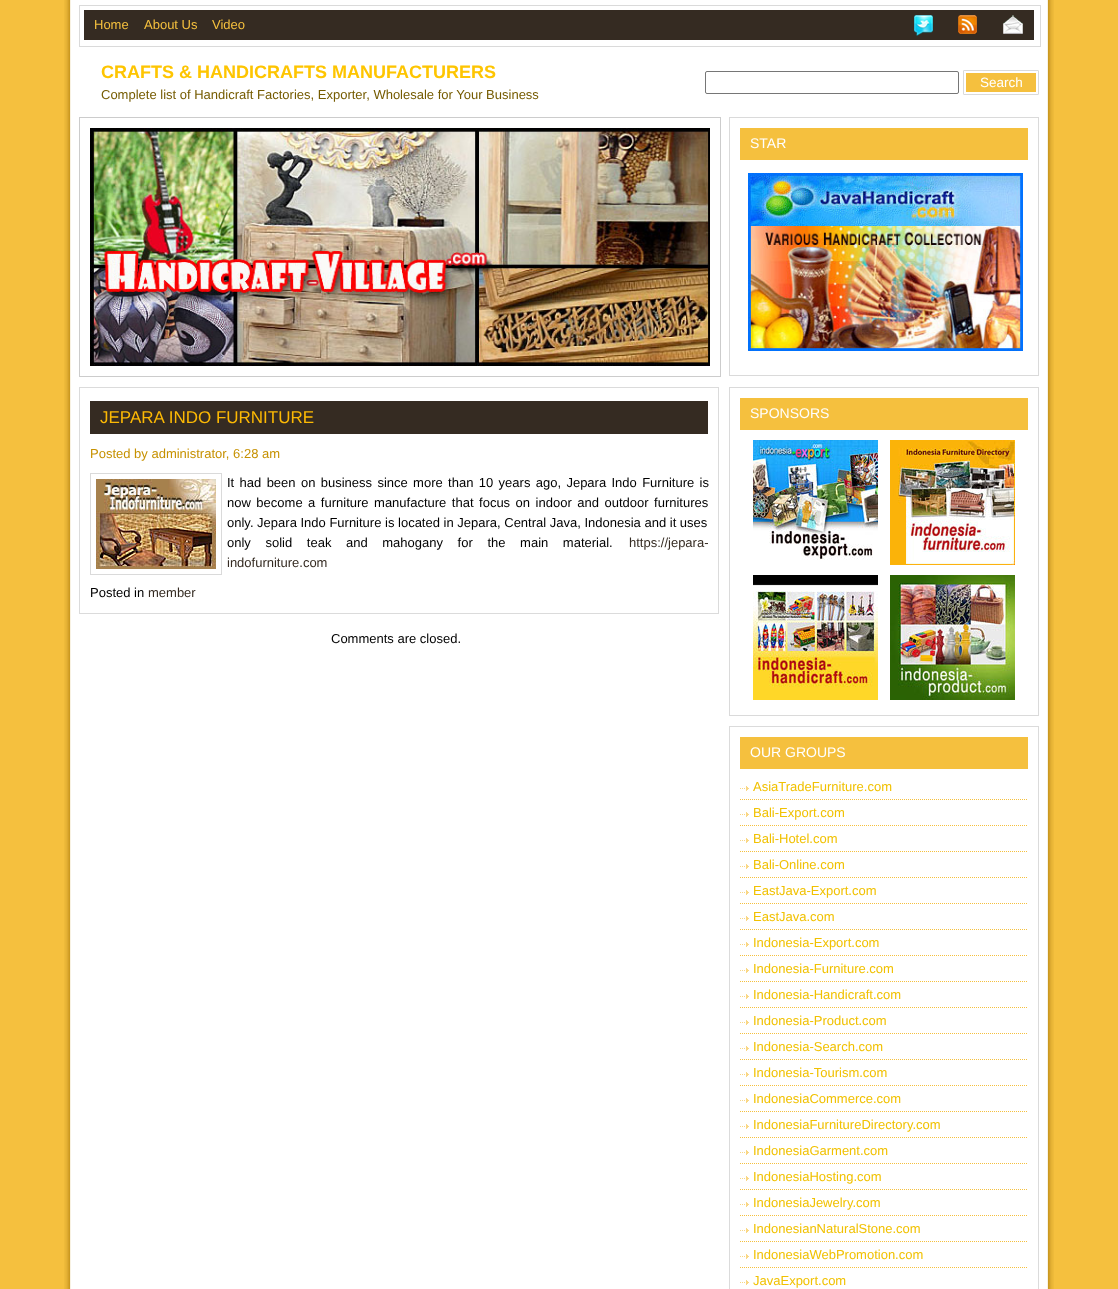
<!DOCTYPE html>
<meta charset="utf-8">
<style>body { margin: 0 } canvas { display: block }</style>
<canvas id="canvas" width="1118" height="1289"></canvas>
<script type="module">
  const canvas = document.getElementById("canvas");
  const ctx = canvas.getContext("2d");
  ctx.miterLimit = 4;
  ctx.fontKerning = "normal";
  async function loadImage(src) {
    const img = new Image();
    img.src = src;
    await img.decode();
    return img;
  }

  ctx.fillStyle = "#f5c03e";
  ctx.fillRect(0, 0, 1118, 1289);
  ctx.drawImage(await loadImage("img1.png"), 64, 0, 990, 1289);
  ctx.strokeStyle = "#dadada";
  ctx.strokeRect(79.5, 5.5, 961, 41);
  ctx.fillStyle = "#352b22";
  ctx.fillRect(84, 10, 950, 30);
  ctx.font = "13px Liberation Sans";
  ctx.fillStyle = "#f5c03e";
  ctx.fillText("Home", 94, 29);
  ctx.fillText("About Us", 144, 29);
  ctx.fillText("Video", 212, 29);
  ctx.drawImage(await loadImage("img2.png"), 914, 15, 19, 21);
  ctx.drawImage(await loadImage("img3.png"), 958, 15, 19, 19);
  ctx.drawImage(await loadImage("img4.png"), 1003, 15, 20, 19);
  ctx.font = "bold 18px Liberation Sans";
  ctx.fillStyle = "#fec501";
  ctx.fillText("CRAFTS & HANDICRAFTS MANUFACTURERS", 101, 78);
  ctx.font = "13px Liberation Sans";
  ctx.fillStyle = "#755b00";
  ctx.fillText("Complete list of Handicraft Factories, Exporter, Wholesale for Your Business", 101, 99);
  ctx.beginPath();
  ctx.roundRect(705.5, 71.5, 253, 22, 1.5);
  ctx.strokeStyle = "#767676";
  ctx.stroke();
  ctx.drawImage(await loadImage("img5.png"), 963, 70, 76, 25);
  ctx.font = "13.5px Liberation Sans";
  ctx.fillStyle = "#ffffff";
  ctx.fillText("Search", 980, 87);
  ctx.strokeStyle = "#cccccc";
  ctx.strokeRect(79.5, 117.5, 641, 259);
  ctx.drawImage(await loadImage("img6.png"), 90, 128, 620, 238);
  ctx.strokeStyle = "#dadada";
  ctx.strokeRect(729.5, 117.5, 309, 258);
  ctx.fillStyle = "#f5c03e";
  ctx.fillRect(740, 128, 288, 32);
  ctx.font = "14px Liberation Sans";
  ctx.fillStyle = "#ffffff";
  ctx.fillText("STAR", 750, 148);
  ctx.drawImage(await loadImage("img7.png"), 748, 173, 275, 178);
  ctx.strokeStyle = "#dbdbdb";
  ctx.strokeRect(79.5, 387.5, 639, 226);
  ctx.fillStyle = "#352b22";
  ctx.fillRect(90, 401, 618, 33);
  ctx.font = "17px Liberation Sans";
  ctx.fillStyle = "#fcb904";
  ctx.fillText("JEPARA INDO FURNITURE", 100, 423);
  ctx.font = "13px Liberation Sans";
  ctx.fillStyle = "#c69101";
  ctx.fillText("Posted by administrator, 6:28 am", 90, 458);
  ctx.strokeStyle = "#dadada";
  ctx.strokeRect(90.5, 473.5, 131, 101);
  ctx.drawImage(await loadImage("img8.png"), 96, 479, 120, 90);
  ctx.wordSpacing = "1.75px";
  ctx.fillStyle = "#000000";
  ctx.fillText("It had been on business since more than 10 years ago, Jepara Indo Furniture is", 227, 487);
  ctx.wordSpacing = "1.9px";
  ctx.fillText("now become a furniture manufacture that focus on indoor and outdoor furnitures", 227, 507);
  ctx.wordSpacing = "0px";
  ctx.fillText("only. Jepara Indo Furniture is located in Jepara, Central Java, Indonesia and it uses", 227, 527);
  ctx.wordSpacing = "11px";
  ctx.fillText("only solid teak and mahogany for the main material.", 227, 547);
  ctx.wordSpacing = "0px";
  ctx.fillStyle = "#352b22";
  ctx.fillText("https://jepara-", 629, 547);
  ctx.fillText("indofurniture.com", 227, 567);
  ctx.fillStyle = "#000000";
  ctx.fillText("Posted in", 90, 597);
  ctx.fillStyle = "#352b22";
  ctx.fillText("member", 148, 597);
  ctx.fillStyle = "#000000";
  ctx.fillText("Comments are closed.", 331, 643);
  ctx.strokeRect(729.5, 387.5, 309, 328);
  ctx.fillStyle = "#f5c03e";
  ctx.fillRect(740, 398, 288, 32);
  ctx.font = "14px Liberation Sans";
  ctx.fillStyle = "#ffffff";
  ctx.fillText("SPONSORS", 750, 418);
  ctx.drawImage(await loadImage("img9.png"), 753, 440, 125, 120);
  ctx.drawImage(await loadImage("img10.png"), 890, 440, 125, 125);
  ctx.drawImage(await loadImage("img11.png"), 753, 575, 125, 125);
  ctx.drawImage(await loadImage("img12.png"), 890, 575, 125, 125);
  ctx.strokeStyle = "#dbdbdb";
  ctx.strokeRect(729.5, 726.5, 309, 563);
  ctx.fillStyle = "#f5c03e";
  ctx.fillRect(740, 737, 288, 32);
  ctx.fillStyle = "#ffffff";
  ctx.fillText("OUR GROUPS", 750, 757);
  ctx.drawImage(await loadImage("img13.png"), 740, 786, 9, 5);
  ctx.beginPath();
  ctx.moveTo(740, 799.5);
  ctx.lineTo(1028, 799.5);
  ctx.strokeStyle = "#f5c03e";
  ctx.setLineDash([1, 1]);
  ctx.stroke();
  ctx.font = "13px Liberation Sans";
  ctx.fillStyle = "#f1c101";
  ctx.fillText("AsiaTradeFurniture.com", 753, 791);
  ctx.drawImage(await loadImage("img13.png"), 740, 812, 9, 5);
  ctx.beginPath();
  ctx.moveTo(740, 825.5);
  ctx.lineTo(1028, 825.5);
  ctx.stroke();
  ctx.fillText("Bali-Export.com", 753, 817);
  ctx.drawImage(await loadImage("img13.png"), 740, 838, 9, 5);
  ctx.beginPath();
  ctx.moveTo(740, 851.5);
  ctx.lineTo(1028, 851.5);
  ctx.stroke();
  ctx.fillText("Bali-Hotel.com", 753, 843);
  ctx.drawImage(await loadImage("img13.png"), 740, 864, 9, 5);
  ctx.beginPath();
  ctx.moveTo(740, 877.5);
  ctx.lineTo(1028, 877.5);
  ctx.stroke();
  ctx.fillText("Bali-Online.com", 753, 869);
  ctx.drawImage(await loadImage("img13.png"), 740, 890, 9, 5);
  ctx.beginPath();
  ctx.moveTo(740, 903.5);
  ctx.lineTo(1028, 903.5);
  ctx.stroke();
  ctx.fillText("EastJava-Export.com", 753, 895);
  ctx.drawImage(await loadImage("img13.png"), 740, 916, 9, 5);
  ctx.beginPath();
  ctx.moveTo(740, 929.5);
  ctx.lineTo(1028, 929.5);
  ctx.stroke();
  ctx.fillText("EastJava.com", 753, 921);
  ctx.drawImage(await loadImage("img13.png"), 740, 942, 9, 5);
  ctx.beginPath();
  ctx.moveTo(740, 955.5);
  ctx.lineTo(1028, 955.5);
  ctx.stroke();
  ctx.fillText("Indonesia-Export.com", 753, 947);
  ctx.drawImage(await loadImage("img13.png"), 740, 968, 9, 5);
  ctx.beginPath();
  ctx.moveTo(740, 981.5);
  ctx.lineTo(1028, 981.5);
  ctx.stroke();
  ctx.fillText("Indonesia-Furniture.com", 753, 973);
  ctx.drawImage(await loadImage("img13.png"), 740, 994, 9, 5);
  ctx.beginPath();
  ctx.moveTo(740, 1007.5);
  ctx.lineTo(1028, 1007.5);
  ctx.stroke();
  ctx.fillText("Indonesia-Handicraft.com", 753, 999);
  ctx.drawImage(await loadImage("img13.png"), 740, 1020, 9, 5);
  ctx.beginPath();
  ctx.moveTo(740, 1033.5);
  ctx.lineTo(1028, 1033.5);
  ctx.stroke();
  ctx.fillText("Indonesia-Product.com", 753, 1025);
  ctx.drawImage(await loadImage("img13.png"), 740, 1046, 9, 5);
  ctx.beginPath();
  ctx.moveTo(740, 1059.5);
  ctx.lineTo(1028, 1059.5);
  ctx.stroke();
  ctx.fillText("Indonesia-Search.com", 753, 1051);
  ctx.drawImage(await loadImage("img13.png"), 740, 1072, 9, 5);
  ctx.beginPath();
  ctx.moveTo(740, 1085.5);
  ctx.lineTo(1028, 1085.5);
  ctx.stroke();
  ctx.fillText("Indonesia-Tourism.com", 753, 1077);
  ctx.drawImage(await loadImage("img13.png"), 740, 1098, 9, 5);
  ctx.beginPath();
  ctx.moveTo(740, 1111.5);
  ctx.lineTo(1028, 1111.5);
  ctx.stroke();
  ctx.fillText("IndonesiaCommerce.com", 753, 1103);
  ctx.drawImage(await loadImage("img13.png"), 740, 1124, 9, 5);
  ctx.beginPath();
  ctx.moveTo(740, 1137.5);
  ctx.lineTo(1028, 1137.5);
  ctx.stroke();
  ctx.fillText("IndonesiaFurnitureDirectory.com", 753, 1129);
  ctx.drawImage(await loadImage("img13.png"), 740, 1150, 9, 5);
  ctx.beginPath();
  ctx.moveTo(740, 1163.5);
  ctx.lineTo(1028, 1163.5);
  ctx.stroke();
  ctx.fillText("IndonesiaGarment.com", 753, 1155);
  ctx.drawImage(await loadImage("img13.png"), 740, 1176, 9, 5);
  ctx.beginPath();
  ctx.moveTo(740, 1189.5);
  ctx.lineTo(1028, 1189.5);
  ctx.stroke();
  ctx.fillText("IndonesiaHosting.com", 753, 1181);
  ctx.drawImage(await loadImage("img13.png"), 740, 1202, 9, 5);
  ctx.beginPath();
  ctx.moveTo(740, 1215.5);
  ctx.lineTo(1028, 1215.5);
  ctx.stroke();
  ctx.fillText("IndonesiaJewelry.com", 753, 1207);
  ctx.drawImage(await loadImage("img13.png"), 740, 1228, 9, 5);
  ctx.beginPath();
  ctx.moveTo(740, 1241.5);
  ctx.lineTo(1028, 1241.5);
  ctx.stroke();
  ctx.fillText("IndonesianNaturalStone.com", 753, 1233);
  ctx.drawImage(await loadImage("img13.png"), 740, 1254, 9, 5);
  ctx.beginPath();
  ctx.moveTo(740, 1267.5);
  ctx.lineTo(1028, 1267.5);
  ctx.stroke();
  ctx.fillText("IndonesiaWebPromotion.com", 753, 1259);
  ctx.drawImage(await loadImage("img13.png"), 740, 1280, 9, 5);
  ctx.fillText("JavaExport.com", 753, 1285);
</script>
